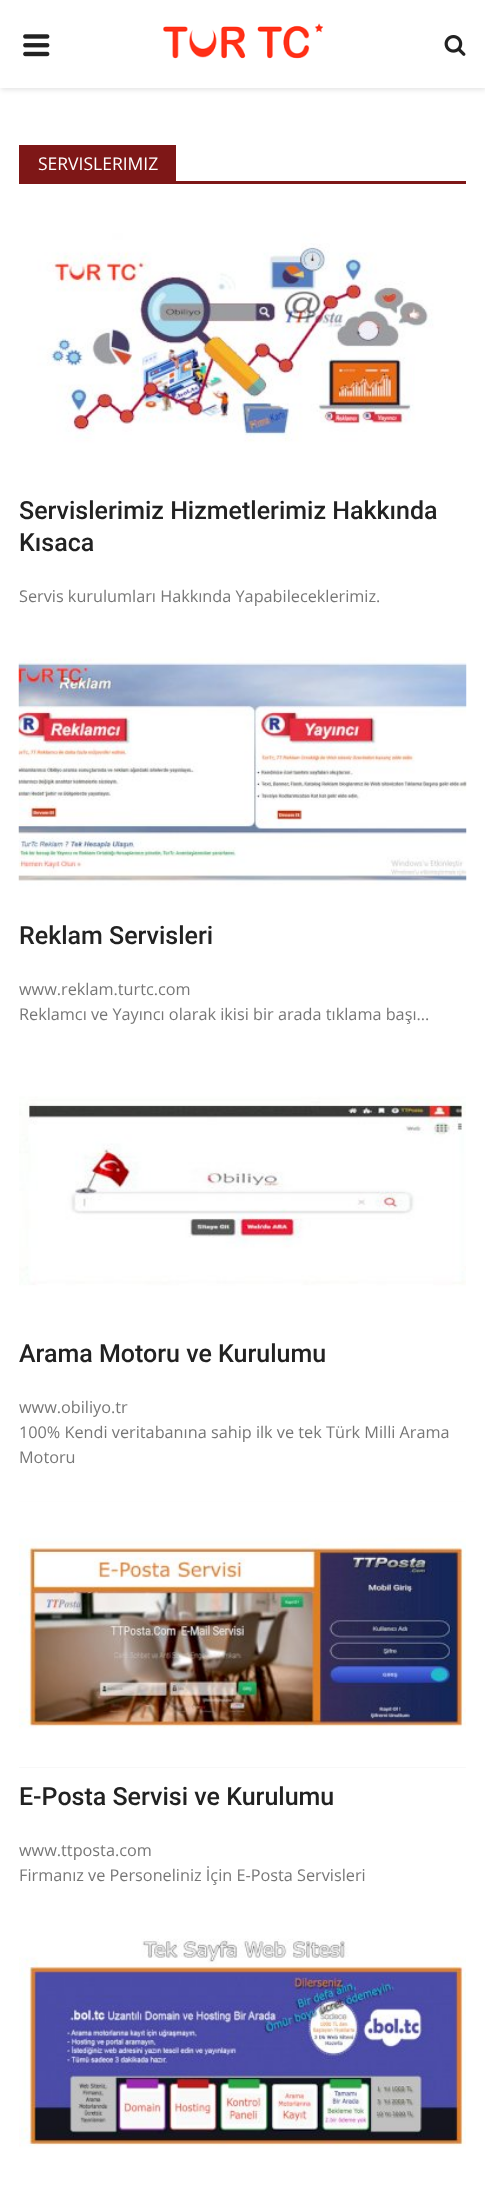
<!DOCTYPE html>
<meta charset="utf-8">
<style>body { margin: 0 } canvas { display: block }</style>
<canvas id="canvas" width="485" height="2185"></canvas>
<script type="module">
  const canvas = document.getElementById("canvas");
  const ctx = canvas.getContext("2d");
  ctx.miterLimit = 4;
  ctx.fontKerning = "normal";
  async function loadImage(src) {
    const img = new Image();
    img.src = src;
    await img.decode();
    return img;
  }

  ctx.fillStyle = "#ffffff";
  ctx.fillRect(0, 0, 485, 2185);
  ctx.fillStyle = "rgba(0, 0, 0, 0.1)";
  ctx.filter = "blur(2.5px)";
  ctx.beginPath();
  ctx.rect(1, 3, 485, 87);
  ctx.fill();
  ctx.filter = "none";
  ctx.fillStyle = "#ffffff";
  ctx.fillRect(0, 0, 485, 88);
  ctx.drawImage(await loadImage("img1.png"), 23, 34, 27, 23);
  ctx.drawImage(await loadImage("img2.png"), 163, 23, 161, 36);
  ctx.drawImage(await loadImage("img3.png"), 444, 35, 22, 21);
  ctx.fillStyle = "#7e1717";
  ctx.fillRect(19, 181, 447, 3);
  ctx.fillRect(19, 145, 157, 36);
  ctx.font = "17.5px Open Sans";
  ctx.fillStyle = "#ffffff";
  ctx.fillText("SERVISLERIMIZ", 38, 170);
  ctx.drawImage(await loadImage("img4.png"), 19, 215, 447, 266);
  ctx.font = "500 25px Roboto";
  ctx.fillStyle = "#222222";
  ctx.fillText("Servislerimiz Hizmetlerimiz Hakkında", 19, 519);
  ctx.fillText("Kısaca", 19, 551);
  ctx.font = "16.25px Open Sans";
  ctx.fillStyle = "#777777";
  ctx.fillText("Servis kurulumları Hakkında Yapabileceklerimiz.", 19, 602);
  ctx.drawImage(await loadImage("img5.png"), 18, 640, 449, 266);
  ctx.font = "500 25px Roboto";
  ctx.fillStyle = "#222222";
  ctx.fillText("Reklam Servisleri", 19, 944);
  ctx.font = "16.25px Open Sans";
  ctx.fillStyle = "#777777";
  ctx.fillText("www.reklam.turtc.com", 19, 995);
  ctx.fillText("Reklamcı ve Yayıncı olarak ikisi bir arada tıklama başı...", 19, 1020);
  ctx.drawImage(await loadImage("img6.png"), 19, 1059, 447, 266);
  ctx.font = "500 25px Roboto";
  ctx.fillStyle = "#222222";
  ctx.fillText("Arama Motoru ve Kurulumu", 19, 1362);
  ctx.font = "16.25px Open Sans";
  ctx.fillStyle = "#777777";
  ctx.fillText("www.obiliyo.tr", 19, 1413);
  ctx.fillText("100% Kendi veritabanına sahip ilk ve tek Türk Milli Arama", 19, 1438);
  ctx.fillText("Motoru", 19, 1463);
  ctx.fillStyle = "#f8f8f8";
  ctx.fillRect(19, 1501, 447, 267);
  ctx.drawImage(await loadImage("img7.png"), 18, 1501, 448, 266);
  ctx.font = "500 25px Roboto";
  ctx.fillStyle = "#222222";
  ctx.fillText("E-Posta Servisi ve Kurulumu", 19, 1805);
  ctx.font = "16.25px Open Sans";
  ctx.fillStyle = "#777777";
  ctx.fillText("www.ttposta.com", 19, 1856);
  ctx.fillText("Firmanız ve Personeliniz İçin E-Posta Servisleri", 19, 1881);
  ctx.drawImage(await loadImage("img8.png"), 19, 1920, 447, 265);
</script>
